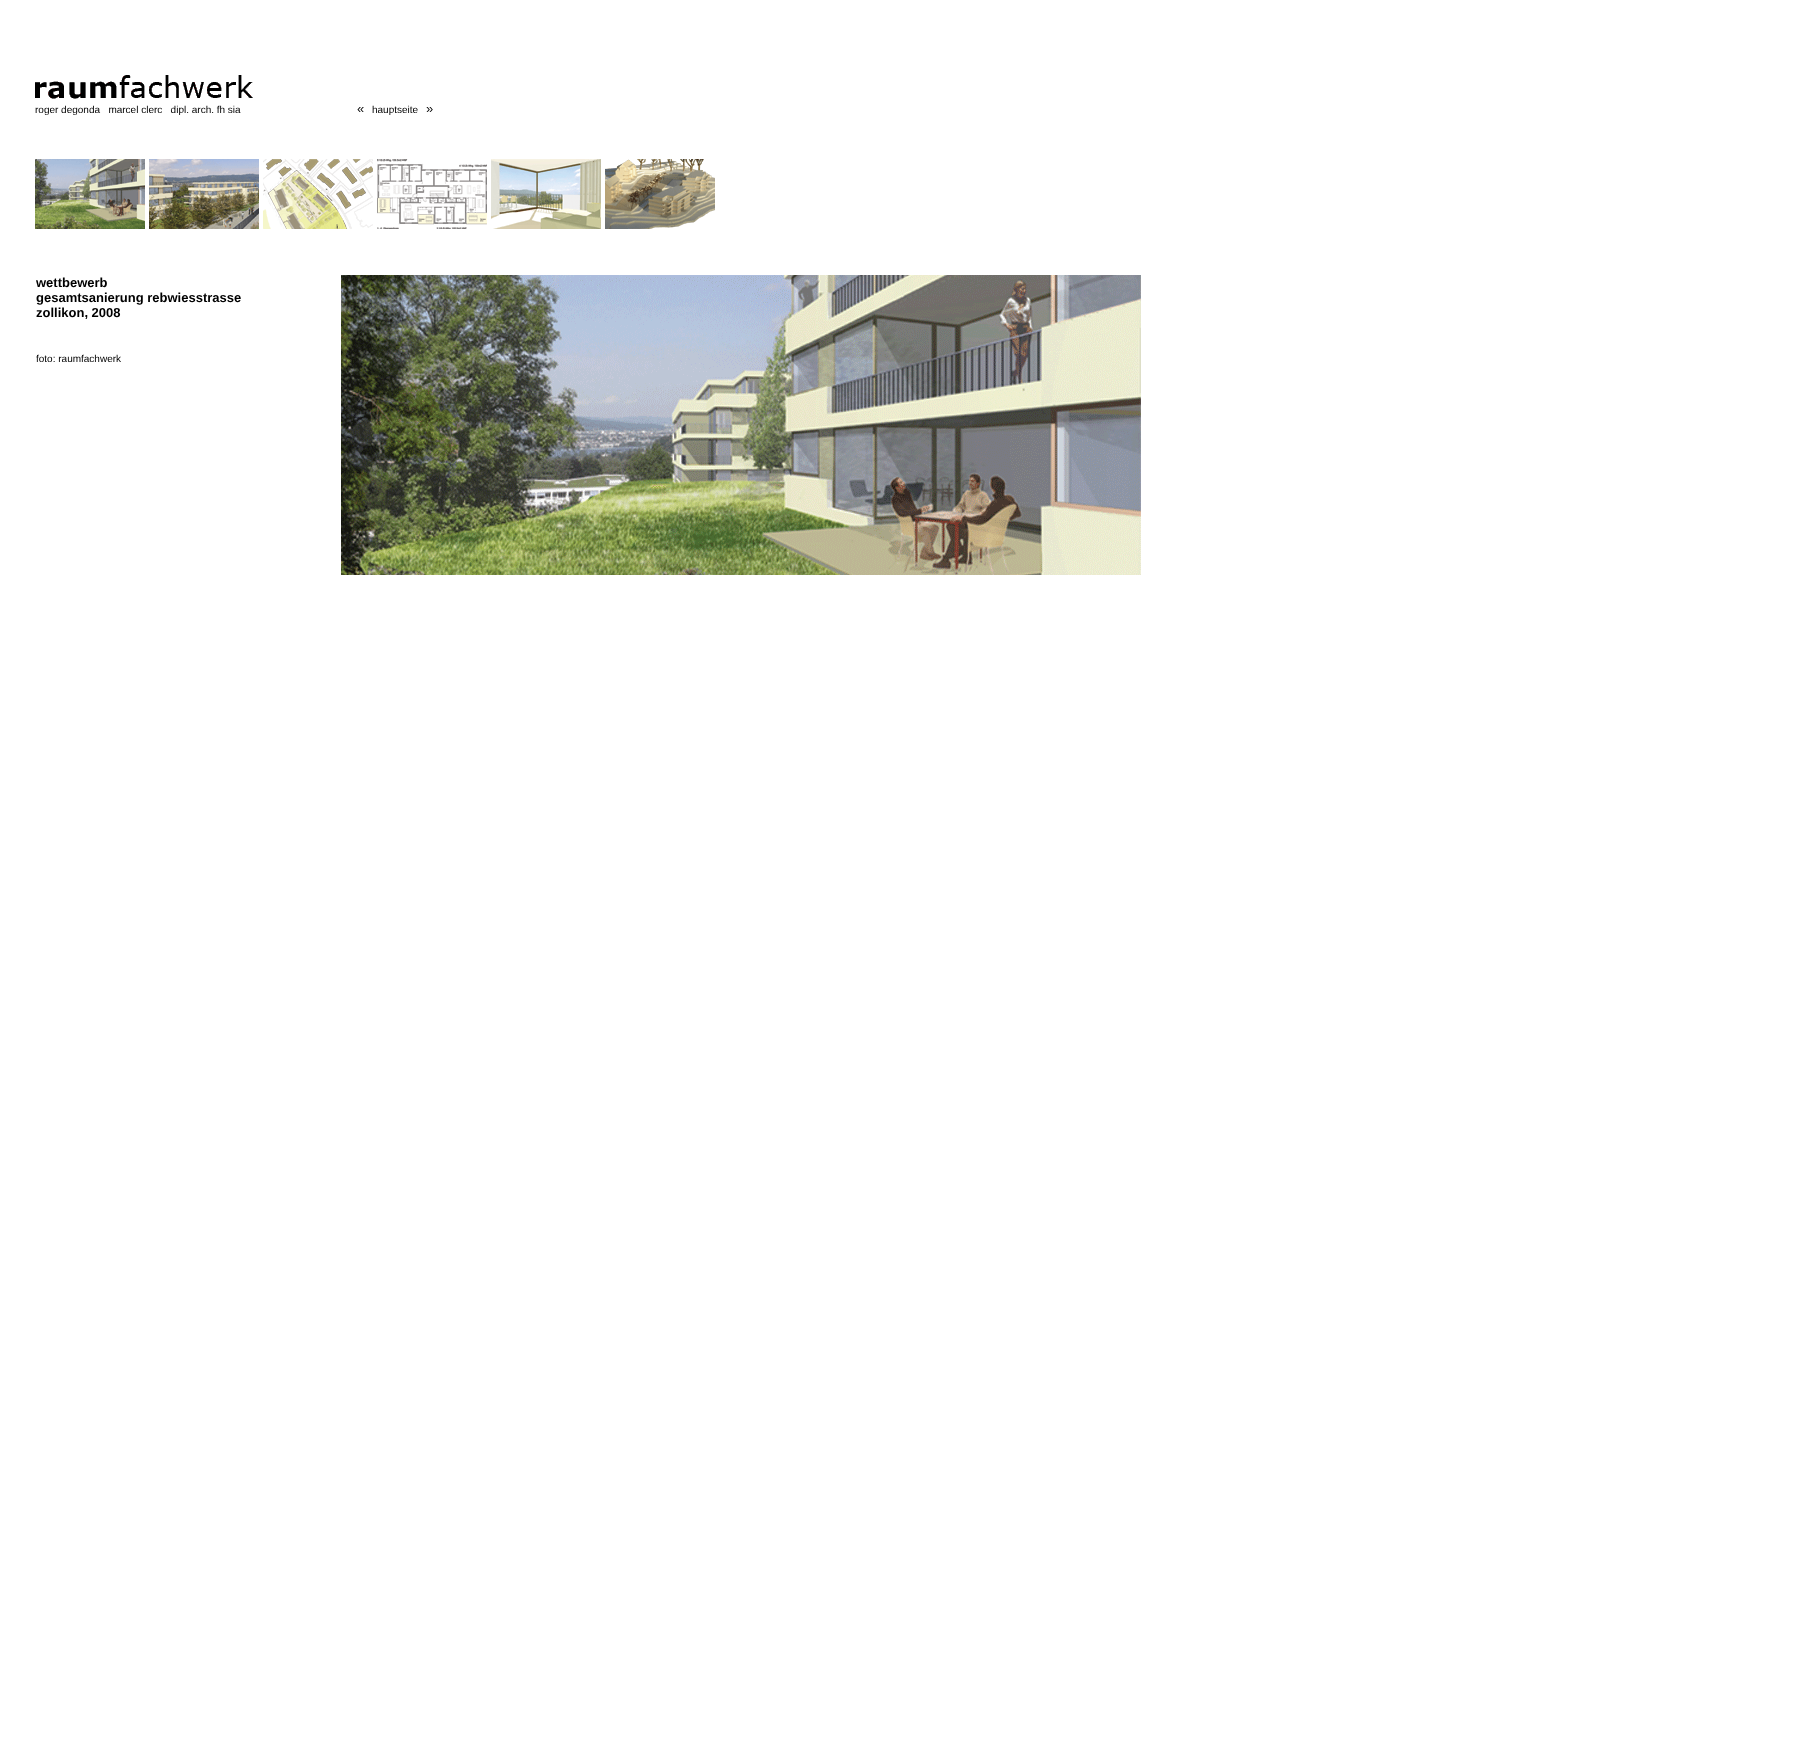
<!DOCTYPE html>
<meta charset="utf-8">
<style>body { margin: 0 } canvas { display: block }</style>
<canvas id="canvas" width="1808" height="1741"></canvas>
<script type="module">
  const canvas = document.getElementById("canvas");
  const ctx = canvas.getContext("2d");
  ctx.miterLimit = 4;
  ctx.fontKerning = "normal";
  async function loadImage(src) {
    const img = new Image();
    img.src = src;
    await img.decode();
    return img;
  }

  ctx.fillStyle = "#ffffff";
  ctx.fillRect(0, 0, 1808, 1741);
  ctx.drawImage(await loadImage("img1.png"), 35, 75, 218, 24);
  ctx.font = "10px Liberation Sans";
  ctx.fillStyle = "#000000";
  ctx.fillText("roger degonda   marcel clerc   dipl. arch. fh sia", 35, 113);
  ctx.font = "13px Liberation Sans";
  ctx.fillText("«", 357, 113);
  ctx.font = "10px Liberation Sans";
  ctx.fillText("hauptseite", 372, 113);
  ctx.font = "13px Liberation Sans";
  ctx.fillText("»", 426, 113);
  ctx.drawImage(await loadImage("img2.png"), 35, 159, 110, 70);
  ctx.drawImage(await loadImage("img3.png"), 149, 159, 110, 70);
  ctx.drawImage(await loadImage("img4.png"), 263, 159, 110, 70);
  ctx.drawImage(await loadImage("img5.png"), 377, 159, 110, 70);
  ctx.drawImage(await loadImage("img6.png"), 491, 159, 110, 70);
  ctx.drawImage(await loadImage("img7.png"), 605, 159, 110, 70);
  ctx.font = "bold 13px Liberation Sans";
  ctx.fillText("wettbewerb", 36, 287);
  ctx.fillText("gesamtsanierung rebwiesstrasse", 36, 302);
  ctx.fillText("zollikon, 2008", 36, 317);
  ctx.font = "10px Liberation Sans";
  ctx.fillText("foto: raumfachwerk", 36, 362);
  ctx.drawImage(await loadImage("img8.png"), 341, 275, 800, 300);
</script>
